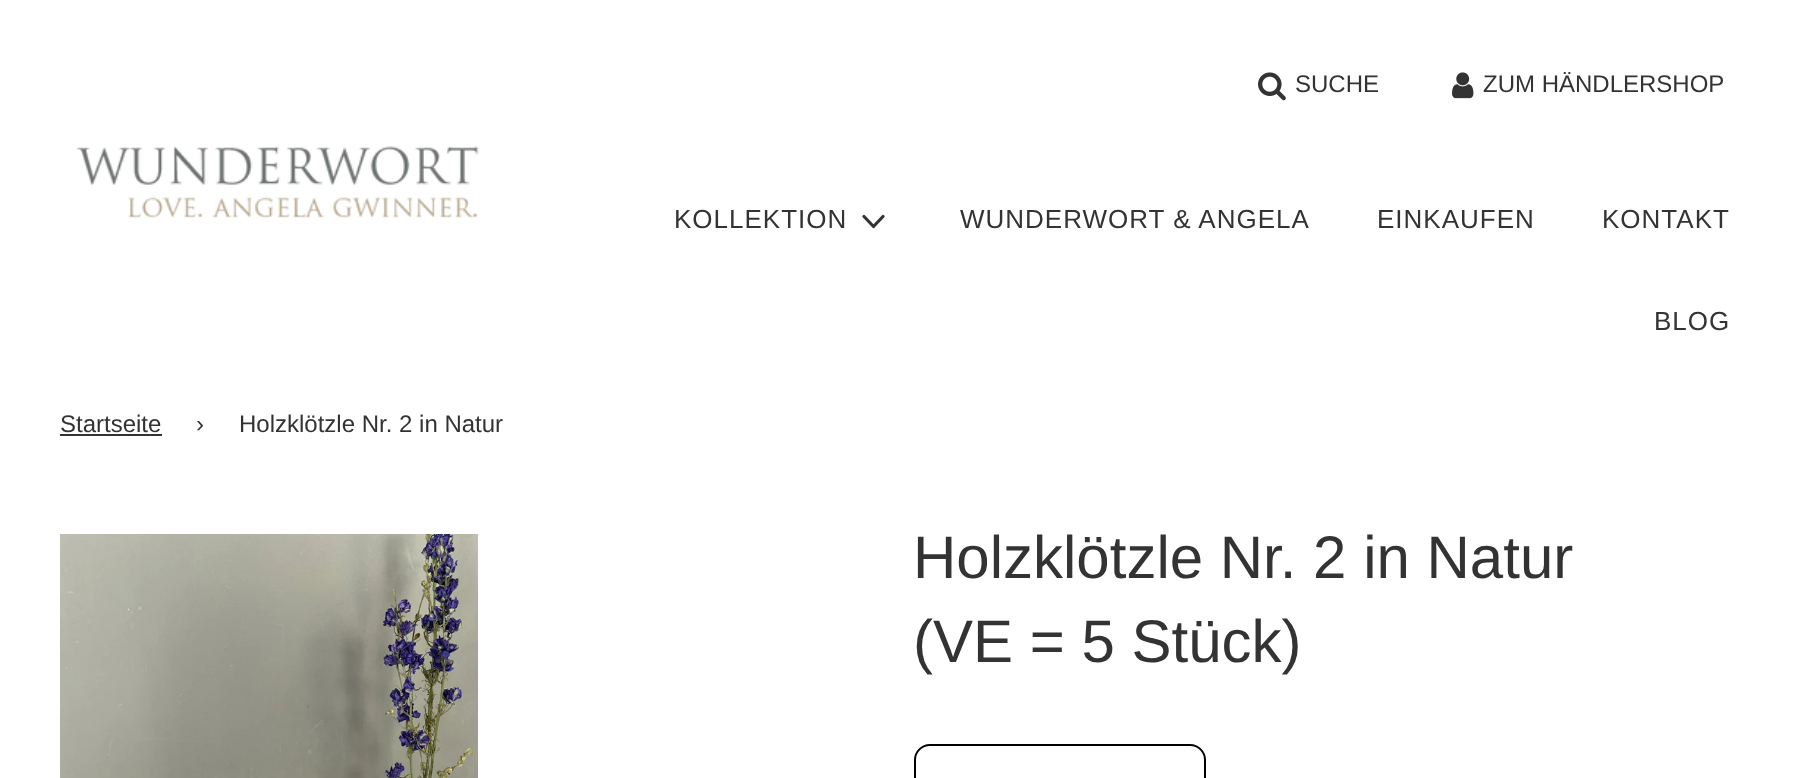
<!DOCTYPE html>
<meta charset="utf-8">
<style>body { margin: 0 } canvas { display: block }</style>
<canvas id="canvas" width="1819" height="778"></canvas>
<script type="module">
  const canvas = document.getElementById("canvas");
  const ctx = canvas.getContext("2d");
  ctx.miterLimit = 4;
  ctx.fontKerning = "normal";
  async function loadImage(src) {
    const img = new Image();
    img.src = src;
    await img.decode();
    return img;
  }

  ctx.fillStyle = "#ffffff";
  ctx.fillRect(0, 0, 1819, 778);
  ctx.drawImage(await loadImage("img1.png"), 76, 146, 403, 73);
  ctx.drawImage(await loadImage("img2.png"), 1258, 72, 28, 29);
  ctx.font = "24px Liberation Sans";
  ctx.fillStyle = "#333333";
  ctx.fillText("SUCHE", 1295, 92);
  ctx.drawImage(await loadImage("img3.png"), 1452, 72, 22, 27);
  ctx.fillText("ZUM HÄNDLERSHOP", 1483, 92);
  ctx.letterSpacing = "1px";
  ctx.font = "26px Liberation Sans";
  ctx.fillText("KOLLEKTION", 674, 228);
  ctx.beginPath();
  ctx.moveTo(864, 216.5);
  ctx.lineTo(873.5, 226.5);
  ctx.lineTo(883, 216.5);
  ctx.strokeStyle = "#333333";
  ctx.lineWidth = 3.2;
  ctx.lineCap = "round";
  ctx.lineJoin = "round";
  ctx.stroke();
  ctx.fillText("WUNDERWORT & ANGELA", 960, 228);
  ctx.fillText("EINKAUFEN", 1377, 228);
  ctx.fillText("KONTAKT", 1602, 228);
  ctx.fillText("BLOG", 1654, 330);
  ctx.letterSpacing = "0px";
  ctx.font = "24px Liberation Sans";
  ctx.fillText("Startseite", 60, 432);
  ctx.fillRect(60, 434, 102, 2);
  ctx.fillText("›", 196, 432);
  ctx.fillText("Holzklötzle Nr. 2 in Natur", 239, 432);
  ctx.drawImage(await loadImage("img4.png"), 60, 534, 418, 244);
  ctx.font = "60px Liberation Sans";
  ctx.fillText("Holzklötzle Nr. 2 in Natur", 913, 578);
  ctx.fillText("(VE = 5 Stück)", 913, 662);
  ctx.beginPath();
  ctx.roundRect(915, 745, 290, 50, 15);
  ctx.strokeStyle = "#000000";
  ctx.lineWidth = 2;
  ctx.lineJoin = "miter";
  ctx.stroke();
</script>
